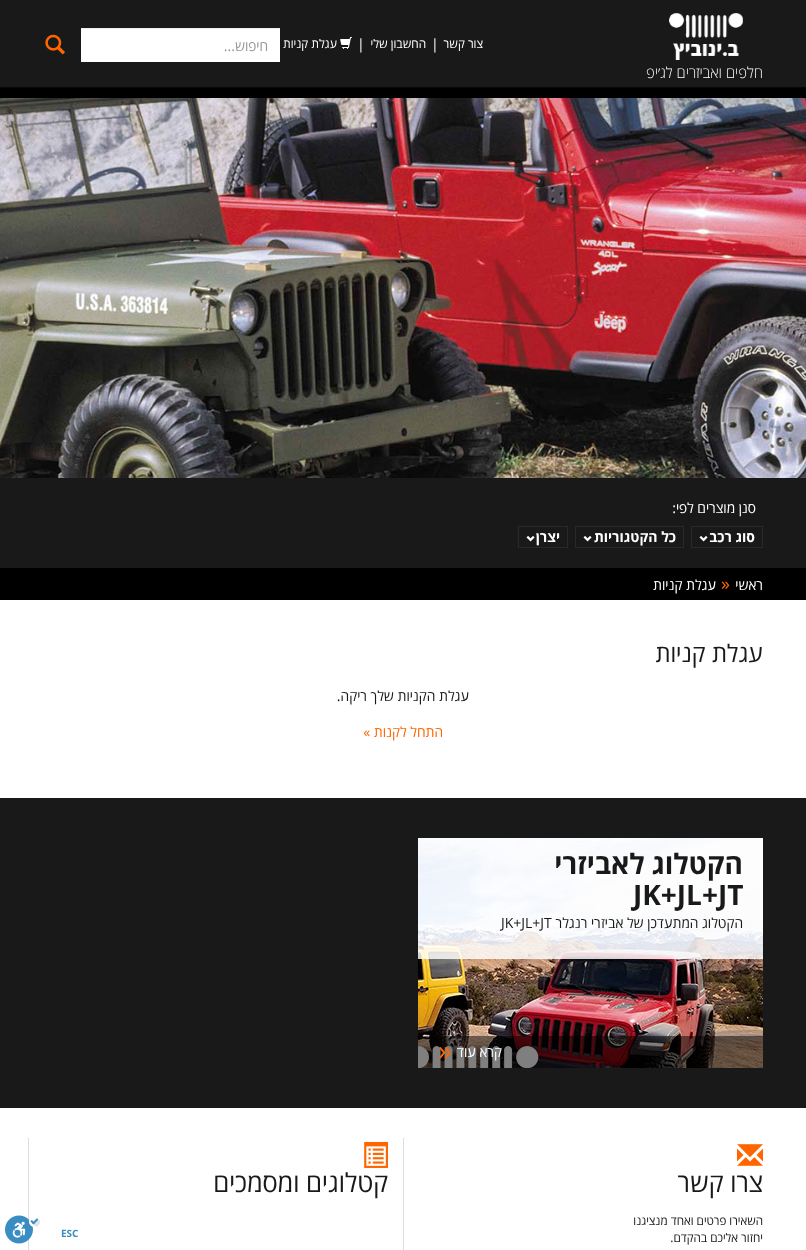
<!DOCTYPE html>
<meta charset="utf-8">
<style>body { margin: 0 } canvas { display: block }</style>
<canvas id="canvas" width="806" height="1250"></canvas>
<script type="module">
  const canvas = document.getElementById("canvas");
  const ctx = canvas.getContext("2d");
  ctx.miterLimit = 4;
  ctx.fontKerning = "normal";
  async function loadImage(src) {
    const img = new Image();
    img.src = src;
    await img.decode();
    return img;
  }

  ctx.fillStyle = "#000000";
  ctx.fillRect(0, 0, 806, 1250);
  ctx.fillStyle = "#191919";
  ctx.fillRect(0, 0, 806, 87);
  ctx.fillStyle = "#080808";
  ctx.fillRect(0, 87, 806, 1);
  ctx.direction = "rtl";
  ctx.font = "12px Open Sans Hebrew";
  ctx.fillStyle = "#ffffff";
  ctx.fillText("צור קשר", 483, 48);
  ctx.direction = "ltr";
  ctx.font = "14px Open Sans Hebrew";
  ctx.fillText("|", 431, 49);
  ctx.direction = "rtl";
  ctx.font = "12px Open Sans Hebrew";
  ctx.fillText("החשבון שלי", 426, 48);
  ctx.direction = "ltr";
  ctx.font = "14px Open Sans Hebrew";
  ctx.fillText("|", 357, 49);
  ctx.drawImage(await loadImage("img1.png"), 340, 37, 12, 12);
  ctx.direction = "rtl";
  ctx.font = "12px Open Sans Hebrew";
  ctx.fillText("עגלת קניות", 337, 48);
  ctx.fillRect(81, 29, 199, 33);
  ctx.fillStyle = "#ececec";
  ctx.fillRect(81, 28, 199, 1);
  ctx.font = "14px Open Sans Hebrew";
  ctx.fillStyle = "#999999";
  ctx.fillText("חיפוש...", 268, 51);
  ctx.drawImage(await loadImage("img2.png"), 45, 34, 20, 21);
  ctx.drawImage(await loadImage("img3.png"), 669, 13, 74, 47);
  ctx.font = "300 15px Open Sans Hebrew";
  ctx.fillStyle = "#ffffff";
  ctx.fillText("חלפים ואביזרים לג׳יפ", 763, 78);
  ctx.drawImage(await loadImage("img4.png"), 0, 98, 806, 380);
  ctx.fillStyle = "#191919";
  ctx.fillRect(0, 478, 806, 90);
  ctx.font = "14px Open Sans Hebrew";
  ctx.fillStyle = "#ffffff";
  ctx.fillText("סנן מוצרים לפי:", 756, 513);
  ctx.strokeStyle = "#292929";
  ctx.strokeRect(691.5, 526.5, 71, 21);
  ctx.font = "bold 14px Open Sans Hebrew";
  ctx.fillText("סוג רכב", 755, 542);
  ctx.drawImage(await loadImage("img5.png"), 699, 535, 9, 7);
  ctx.strokeRect(575.5, 526.5, 108, 21);
  ctx.fillText("כל הקטגוריות", 676, 542);
  ctx.drawImage(await loadImage("img5.png"), 583, 535, 9, 7);
  ctx.strokeRect(518.5, 526.5, 49, 21);
  ctx.fillText("יצרן", 560, 542);
  ctx.drawImage(await loadImage("img5.png"), 526, 535, 9, 7);
  ctx.font = "14px Open Sans Hebrew";
  ctx.fillText("ראשי", 763, 590);
  ctx.direction = "ltr";
  ctx.font = "18px Open Sans Hebrew";
  ctx.fillStyle = "#ff6600";
  ctx.fillText("»", 721, 590);
  ctx.direction = "rtl";
  ctx.font = "14px Open Sans Hebrew";
  ctx.fillStyle = "#ffffff";
  ctx.fillText("עגלת קניות", 716, 590);
  ctx.fillRect(0, 600, 806, 198);
  ctx.font = "24px Open Sans Hebrew";
  ctx.fillStyle = "#191919";
  ctx.fillText("עגלת קניות", 763, 662);
  ctx.font = "14px Open Sans Hebrew";
  ctx.fillText("עגלת הקניות שלך ריקה.", 469, 701);
  ctx.fillStyle = "#ff6600";
  ctx.fillText("התחל לקנות »", 443, 737);
  ctx.fillStyle = "#191919";
  ctx.fillRect(0, 798, 806, 310);
  ctx.drawImage(await loadImage("img6.png"), 418, 838, 345, 230);
  ctx.fillStyle = "rgba(255, 255, 255, 0.83)";
  ctx.fillRect(418, 838, 345, 121);
  ctx.font = "bold 28px Open Sans Hebrew";
  ctx.fillStyle = "#191919";
  ctx.fillText("הקטלוג לאביזרי", 743, 874);
  ctx.direction = "ltr";
  ctx.fillText("JK+JL+JT", 633, 905);
  ctx.direction = "rtl";
  ctx.font = "14px Open Sans Hebrew";
  ctx.fillText("הקטלוג המתעדכן של אביזרי רנגלר", 743, 928);
  ctx.direction = "ltr";
  ctx.fillText("JK+JL+JT", 501, 928);
  ctx.fillStyle = "rgba(0, 0, 0, 0.5)";
  ctx.fillRect(418, 1036, 345, 32);
  ctx.direction = "rtl";
  ctx.fillStyle = "#ffffff";
  ctx.fillText("קרא עוד", 502, 1057);
  ctx.direction = "ltr";
  ctx.font = "28px Open Sans Hebrew";
  ctx.fillStyle = "#ff6600";
  ctx.fillText("»", 438, 1060);
  ctx.fillStyle = "#ffffff";
  ctx.fillRect(0, 1108, 806, 142);
  ctx.fillStyle = "#dddddd";
  ctx.fillRect(403, 1138, 1, 112);
  ctx.drawImage(await loadImage("img7.png"), 737, 1144, 26, 22);
  ctx.direction = "rtl";
  ctx.font = "26px Open Sans Hebrew";
  ctx.fillStyle = "#191919";
  ctx.fillText("צרו קשר", 763, 1192);
  ctx.font = "11.9px Open Sans Hebrew";
  ctx.fillText("השאירו פרטים ואחד מנציגנו", 763, 1225);
  ctx.fillText("יחזור אליכם בהקדם.", 763, 1242);
  ctx.fillStyle = "#dddddd";
  ctx.fillRect(28, 1138, 1, 112);
  ctx.drawImage(await loadImage("img8.png"), 364, 1142, 24, 26);
  ctx.font = "26px Open Sans Hebrew";
  ctx.fillStyle = "#191919";
  ctx.fillText("קטלוגים ומסמכים", 388, 1192);
  ctx.direction = "ltr";
  ctx.font = "bold 10px Open Sans Hebrew";
  ctx.fillStyle = "#3a8dc2";
  ctx.fillText("ESC", 61, 1237);
  ctx.drawImage(await loadImage("img9.png"), 5, 1215, 35, 29);
</script>
